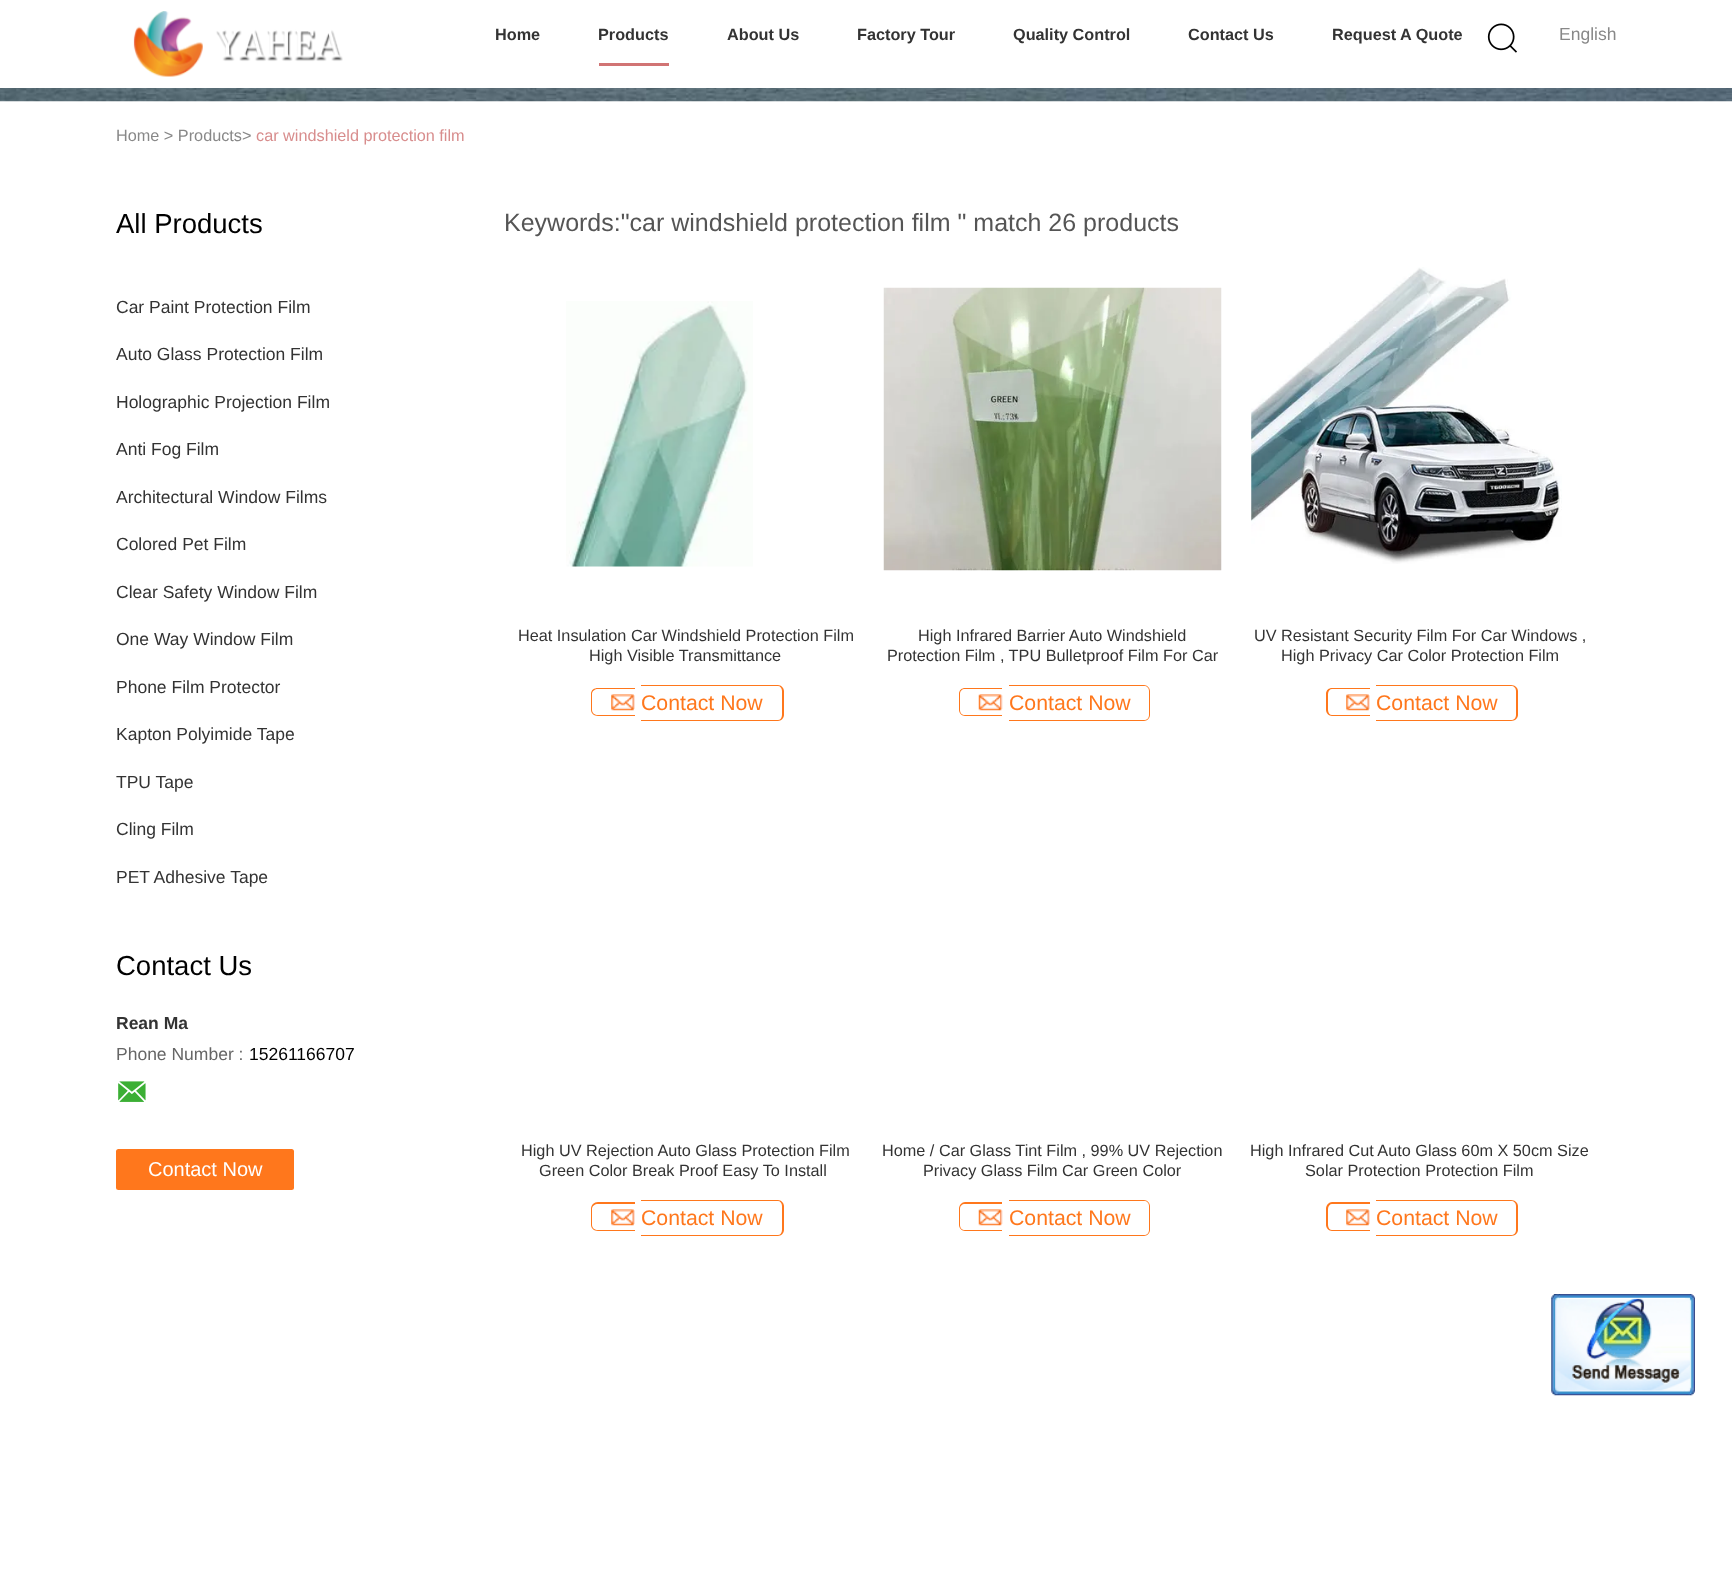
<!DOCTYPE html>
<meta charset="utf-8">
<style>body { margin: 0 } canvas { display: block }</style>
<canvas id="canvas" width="1732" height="1596"></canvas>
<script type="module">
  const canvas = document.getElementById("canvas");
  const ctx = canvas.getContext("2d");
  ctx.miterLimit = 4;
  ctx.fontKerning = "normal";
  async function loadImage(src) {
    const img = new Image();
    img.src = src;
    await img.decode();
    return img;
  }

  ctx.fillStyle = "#ffffff";
  ctx.fillRect(0, 0, 1732, 1596);
  ctx.drawImage(await loadImage("img1.png"), 133, 11, 210, 66);
  ctx.font = "bold 16.25px Liberation Sans";
  ctx.fillStyle = "#333333";
  ctx.fillText("Home", 495, 40);
  ctx.fillStyle = "#d17474";
  ctx.fillRect(599, 63, 70, 3);
  ctx.fillStyle = "#333333";
  ctx.fillText("Products", 598, 40);
  ctx.fillText("About Us", 727, 40);
  ctx.fillText("Factory Tour", 857, 40);
  ctx.fillText("Quality Control", 1013, 40);
  ctx.fillText("Contact Us", 1188, 40);
  ctx.fillText("Request A Quote", 1332, 40);
  ctx.drawImage(await loadImage("img2.png"), 1487, 23, 30, 30);
  ctx.font = "17.5px Liberation Sans";
  ctx.fillStyle = "#888888";
  ctx.fillText("English", 1559, 40);
  ctx.drawImage(await loadImage("img3.png"), 0, 88, 1732, 14);
  ctx.font = "16.25px Liberation Sans";
  ctx.fillText("Home > Products>", 116, 141);
  ctx.fillStyle = "#d88d8d";
  ctx.fillText("car windshield protection film", 256, 141);
  ctx.font = "27.5px Liberation Sans";
  ctx.fillStyle = "#000000";
  ctx.fillText("All Products", 116, 233);
  ctx.font = "17.5px Liberation Sans";
  ctx.fillStyle = "#333333";
  ctx.fillText("Car Paint Protection Film", 116, 313);
  ctx.fillText("Auto Glass Protection Film", 116, 360);
  ctx.fillText("Holographic Projection Film", 116, 408);
  ctx.fillText("Anti Fog Film", 116, 455);
  ctx.fillText("Architectural Window Films", 116, 503);
  ctx.fillText("Colored Pet Film", 116, 550);
  ctx.fillText("Clear Safety Window Film", 116, 598);
  ctx.fillText("One Way Window Film", 116, 645);
  ctx.fillText("Phone Film Protector", 116, 693);
  ctx.fillText("Kapton Polyimide Tape", 116, 740);
  ctx.fillText("TPU Tape", 116, 788);
  ctx.fillText("Cling Film", 116, 835);
  ctx.fillText("PET Adhesive Tape", 116, 883);
  ctx.font = "27.5px Liberation Sans";
  ctx.fillStyle = "#000000";
  ctx.fillText("Contact Us", 116, 975);
  ctx.font = "bold 17.5px Liberation Sans";
  ctx.fillStyle = "#333333";
  ctx.fillText("Rean Ma", 116, 1029);
  ctx.font = "17.5px Liberation Sans";
  ctx.fillStyle = "#666666";
  ctx.fillText("Phone Number :", 116, 1060);
  ctx.fillStyle = "#000000";
  ctx.fillText("15261166707", 249, 1060);
  ctx.drawImage(await loadImage("img4.png"), 118, 1081, 28, 21);
  ctx.fillStyle = "#ff771c";
  ctx.beginPath();
  ctx.roundRect(116, 1149, 178, 41, 2.5);
  ctx.fill();
  ctx.font = "20px Liberation Sans";
  ctx.fillStyle = "#ffffff";
  ctx.fillText("Contact Now", 148, 1176);
  ctx.font = "25px Liberation Sans";
  ctx.fillStyle = "#555555";
  ctx.fillText("Keywords:\"car windshield protection film \" match 26 products", 504, 231);
  ctx.drawImage(await loadImage("img5.png"), 566, 301, 187, 266);
  ctx.font = "16.25px Liberation Sans";
  ctx.fillStyle = "#333333";
  ctx.fillText("Heat Insulation Car Windshield Protection Film", 518, 641);
  ctx.fillText("High Visible Transmittance", 589, 661);
  ctx.fillStyle = "#ff771c";
  ctx.beginPath();
  ctx.moveTo(598, 688);
  ctx.lineTo(635, 688);
  ctx.lineTo(635, 716);
  ctx.lineTo(598, 716);
  ctx.bezierCurveTo(594, 716, 591, 713, 591, 710);
  ctx.lineTo(591, 694);
  ctx.bezierCurveTo(591, 690, 594, 688, 598, 688);
  ctx.closePath();
  ctx.moveTo(598, 689);
  ctx.lineTo(635, 689);
  ctx.lineTo(635, 715);
  ctx.lineTo(598, 715);
  ctx.bezierCurveTo(595, 715, 592, 713, 592, 710);
  ctx.lineTo(592, 694);
  ctx.bezierCurveTo(592, 691, 595, 689, 598, 689);
  ctx.closePath();
  ctx.fill("evenodd");
  ctx.beginPath();
  ctx.moveTo(641, 685);
  ctx.lineTo(778, 685);
  ctx.bezierCurveTo(781, 685, 784, 688, 784, 691);
  ctx.lineTo(784, 715);
  ctx.bezierCurveTo(784, 718, 781, 721, 778, 721);
  ctx.lineTo(641, 721);
  ctx.closePath();
  ctx.moveTo(641, 686);
  ctx.lineTo(778, 686);
  ctx.bezierCurveTo(780, 686, 782, 688, 782, 691);
  ctx.lineTo(782, 715);
  ctx.bezierCurveTo(782, 718, 780, 720, 778, 720);
  ctx.lineTo(641, 720);
  ctx.closePath();
  ctx.fill("evenodd");
  ctx.drawImage(await loadImage("img6.png"), 611, 694, 24, 17);
  ctx.font = "21.25px Liberation Sans";
  ctx.fillText("Contact Now", 641, 710);
  ctx.drawImage(await loadImage("img7.png"), 883, 287, 339, 284);
  ctx.font = "16.25px Liberation Sans";
  ctx.fillStyle = "#333333";
  ctx.fillText("High Infrared Barrier Auto Windshield", 918, 641);
  ctx.fillText("Protection Film , TPU Bulletproof Film For Car", 887, 661);
  ctx.fillStyle = "#ff771c";
  ctx.beginPath();
  ctx.moveTo(965, 688);
  ctx.lineTo(1002, 688);
  ctx.lineTo(1002, 716);
  ctx.lineTo(965, 716);
  ctx.bezierCurveTo(962, 716, 959, 713, 959, 710);
  ctx.lineTo(959, 694);
  ctx.bezierCurveTo(959, 690, 962, 688, 965, 688);
  ctx.closePath();
  ctx.moveTo(965, 689);
  ctx.lineTo(1002, 689);
  ctx.lineTo(1002, 715);
  ctx.lineTo(965, 715);
  ctx.bezierCurveTo(962, 715, 960, 713, 960, 710);
  ctx.lineTo(960, 694);
  ctx.bezierCurveTo(960, 691, 962, 689, 965, 689);
  ctx.closePath();
  ctx.fill("evenodd");
  ctx.beginPath();
  ctx.moveTo(1009, 685);
  ctx.lineTo(1144, 685);
  ctx.bezierCurveTo(1147, 685, 1150, 688, 1150, 691);
  ctx.lineTo(1150, 715);
  ctx.bezierCurveTo(1150, 718, 1147, 721, 1144, 721);
  ctx.lineTo(1009, 721);
  ctx.closePath();
  ctx.moveTo(1009, 686);
  ctx.lineTo(1144, 686);
  ctx.bezierCurveTo(1147, 686, 1149, 688, 1149, 691);
  ctx.lineTo(1149, 715);
  ctx.bezierCurveTo(1149, 718, 1147, 720, 1144, 720);
  ctx.lineTo(1009, 720);
  ctx.closePath();
  ctx.fill("evenodd");
  ctx.drawImage(await loadImage("img8.png"), 978, 694, 25, 17);
  ctx.font = "21.25px Liberation Sans";
  ctx.fillText("Contact Now", 1009, 710);
  ctx.drawImage(await loadImage("img9.png"), 1251, 267, 311, 297);
  ctx.font = "16.25px Liberation Sans";
  ctx.fillStyle = "#333333";
  ctx.fillText("UV Resistant Security Film For Car Windows ,", 1254, 641);
  ctx.fillText("High Privacy Car Color Protection Film", 1281, 661);
  ctx.fillStyle = "#ff771c";
  ctx.beginPath();
  ctx.moveTo(1332, 688);
  ctx.lineTo(1370, 688);
  ctx.lineTo(1370, 716);
  ctx.lineTo(1332, 716);
  ctx.bezierCurveTo(1329, 716, 1326, 713, 1326, 710);
  ctx.lineTo(1326, 694);
  ctx.bezierCurveTo(1326, 690, 1329, 688, 1332, 688);
  ctx.closePath();
  ctx.moveTo(1332, 689);
  ctx.lineTo(1370, 689);
  ctx.lineTo(1370, 715);
  ctx.lineTo(1332, 715);
  ctx.bezierCurveTo(1330, 715, 1328, 713, 1328, 710);
  ctx.lineTo(1328, 694);
  ctx.bezierCurveTo(1328, 691, 1330, 689, 1332, 689);
  ctx.closePath();
  ctx.fill("evenodd");
  ctx.beginPath();
  ctx.moveTo(1376, 685);
  ctx.lineTo(1511, 685);
  ctx.bezierCurveTo(1515, 685, 1518, 688, 1518, 691);
  ctx.lineTo(1518, 715);
  ctx.bezierCurveTo(1518, 718, 1515, 721, 1511, 721);
  ctx.lineTo(1376, 721);
  ctx.closePath();
  ctx.moveTo(1376, 686);
  ctx.lineTo(1511, 686);
  ctx.bezierCurveTo(1514, 686, 1516, 688, 1516, 691);
  ctx.lineTo(1516, 715);
  ctx.bezierCurveTo(1516, 718, 1514, 720, 1511, 720);
  ctx.lineTo(1376, 720);
  ctx.closePath();
  ctx.fill("evenodd");
  ctx.drawImage(await loadImage("img6.png"), 1346, 694, 24, 17);
  ctx.font = "21.25px Liberation Sans";
  ctx.fillText("Contact Now", 1376, 710);
  ctx.font = "16.25px Liberation Sans";
  ctx.fillStyle = "#333333";
  ctx.fillText("High UV Rejection Auto Glass Protection Film", 521, 1156);
  ctx.fillText("Green Color Break Proof Easy To Install", 539, 1176);
  ctx.fillStyle = "#ff771c";
  ctx.beginPath();
  ctx.moveTo(598, 1202);
  ctx.lineTo(635, 1202);
  ctx.lineTo(635, 1231);
  ctx.lineTo(598, 1231);
  ctx.bezierCurveTo(594, 1231, 591, 1228, 591, 1225);
  ctx.lineTo(591, 1209);
  ctx.bezierCurveTo(591, 1205, 594, 1202, 598, 1202);
  ctx.closePath();
  ctx.moveTo(598, 1204);
  ctx.lineTo(635, 1204);
  ctx.lineTo(635, 1230);
  ctx.lineTo(598, 1230);
  ctx.bezierCurveTo(595, 1230, 592, 1228, 592, 1225);
  ctx.lineTo(592, 1209);
  ctx.bezierCurveTo(592, 1206, 595, 1204, 598, 1204);
  ctx.closePath();
  ctx.fill("evenodd");
  ctx.beginPath();
  ctx.moveTo(641, 1200);
  ctx.lineTo(778, 1200);
  ctx.bezierCurveTo(781, 1200, 784, 1203, 784, 1206);
  ctx.lineTo(784, 1230);
  ctx.bezierCurveTo(784, 1233, 781, 1236, 778, 1236);
  ctx.lineTo(641, 1236);
  ctx.closePath();
  ctx.moveTo(641, 1201);
  ctx.lineTo(778, 1201);
  ctx.bezierCurveTo(780, 1201, 782, 1203, 782, 1206);
  ctx.lineTo(782, 1230);
  ctx.bezierCurveTo(782, 1233, 780, 1235, 778, 1235);
  ctx.lineTo(641, 1235);
  ctx.closePath();
  ctx.fill("evenodd");
  ctx.drawImage(await loadImage("img6.png"), 611, 1209, 24, 17);
  ctx.font = "21.25px Liberation Sans";
  ctx.fillText("Contact Now", 641, 1225);
  ctx.font = "16.25px Liberation Sans";
  ctx.fillStyle = "#333333";
  ctx.fillText("Home / Car Glass Tint Film , 99% UV Rejection", 882, 1156);
  ctx.fillText("Privacy Glass Film Car Green Color", 923, 1176);
  ctx.fillStyle = "#ff771c";
  ctx.beginPath();
  ctx.moveTo(965, 1202);
  ctx.lineTo(1002, 1202);
  ctx.lineTo(1002, 1231);
  ctx.lineTo(965, 1231);
  ctx.bezierCurveTo(962, 1231, 959, 1228, 959, 1225);
  ctx.lineTo(959, 1209);
  ctx.bezierCurveTo(959, 1205, 962, 1202, 965, 1202);
  ctx.closePath();
  ctx.moveTo(965, 1204);
  ctx.lineTo(1002, 1204);
  ctx.lineTo(1002, 1230);
  ctx.lineTo(965, 1230);
  ctx.bezierCurveTo(962, 1230, 960, 1228, 960, 1225);
  ctx.lineTo(960, 1209);
  ctx.bezierCurveTo(960, 1206, 962, 1204, 965, 1204);
  ctx.closePath();
  ctx.fill("evenodd");
  ctx.beginPath();
  ctx.moveTo(1009, 1200);
  ctx.lineTo(1144, 1200);
  ctx.bezierCurveTo(1147, 1200, 1150, 1203, 1150, 1206);
  ctx.lineTo(1150, 1230);
  ctx.bezierCurveTo(1150, 1233, 1147, 1236, 1144, 1236);
  ctx.lineTo(1009, 1236);
  ctx.closePath();
  ctx.moveTo(1009, 1201);
  ctx.lineTo(1144, 1201);
  ctx.bezierCurveTo(1147, 1201, 1149, 1203, 1149, 1206);
  ctx.lineTo(1149, 1230);
  ctx.bezierCurveTo(1149, 1233, 1147, 1235, 1144, 1235);
  ctx.lineTo(1009, 1235);
  ctx.closePath();
  ctx.fill("evenodd");
  ctx.drawImage(await loadImage("img8.png"), 978, 1209, 25, 17);
  ctx.font = "21.25px Liberation Sans";
  ctx.fillText("Contact Now", 1009, 1225);
  ctx.font = "16.25px Liberation Sans";
  ctx.fillStyle = "#333333";
  ctx.fillText("High Infrared Cut Auto Glass 60m X 50cm Size", 1250, 1156);
  ctx.fillText("Solar Protection Protection Film", 1305, 1176);
  ctx.fillStyle = "#ff771c";
  ctx.beginPath();
  ctx.moveTo(1332, 1202);
  ctx.lineTo(1370, 1202);
  ctx.lineTo(1370, 1231);
  ctx.lineTo(1332, 1231);
  ctx.bezierCurveTo(1329, 1231, 1326, 1228, 1326, 1225);
  ctx.lineTo(1326, 1209);
  ctx.bezierCurveTo(1326, 1205, 1329, 1202, 1332, 1202);
  ctx.closePath();
  ctx.moveTo(1332, 1204);
  ctx.lineTo(1370, 1204);
  ctx.lineTo(1370, 1230);
  ctx.lineTo(1332, 1230);
  ctx.bezierCurveTo(1330, 1230, 1328, 1228, 1328, 1225);
  ctx.lineTo(1328, 1209);
  ctx.bezierCurveTo(1328, 1206, 1330, 1204, 1332, 1204);
  ctx.closePath();
  ctx.fill("evenodd");
  ctx.beginPath();
  ctx.moveTo(1376, 1200);
  ctx.lineTo(1511, 1200);
  ctx.bezierCurveTo(1515, 1200, 1518, 1203, 1518, 1206);
  ctx.lineTo(1518, 1230);
  ctx.bezierCurveTo(1518, 1233, 1515, 1236, 1511, 1236);
  ctx.lineTo(1376, 1236);
  ctx.closePath();
  ctx.moveTo(1376, 1201);
  ctx.lineTo(1511, 1201);
  ctx.bezierCurveTo(1514, 1201, 1516, 1203, 1516, 1206);
  ctx.lineTo(1516, 1230);
  ctx.bezierCurveTo(1516, 1233, 1514, 1235, 1511, 1235);
  ctx.lineTo(1376, 1235);
  ctx.closePath();
  ctx.fill("evenodd");
  ctx.drawImage(await loadImage("img6.png"), 1346, 1209, 24, 17);
  ctx.font = "21.25px Liberation Sans";
  ctx.fillText("Contact Now", 1376, 1225);
  ctx.drawImage(await loadImage("img10.png"), 1551, 1294, 144, 102);
</script>
